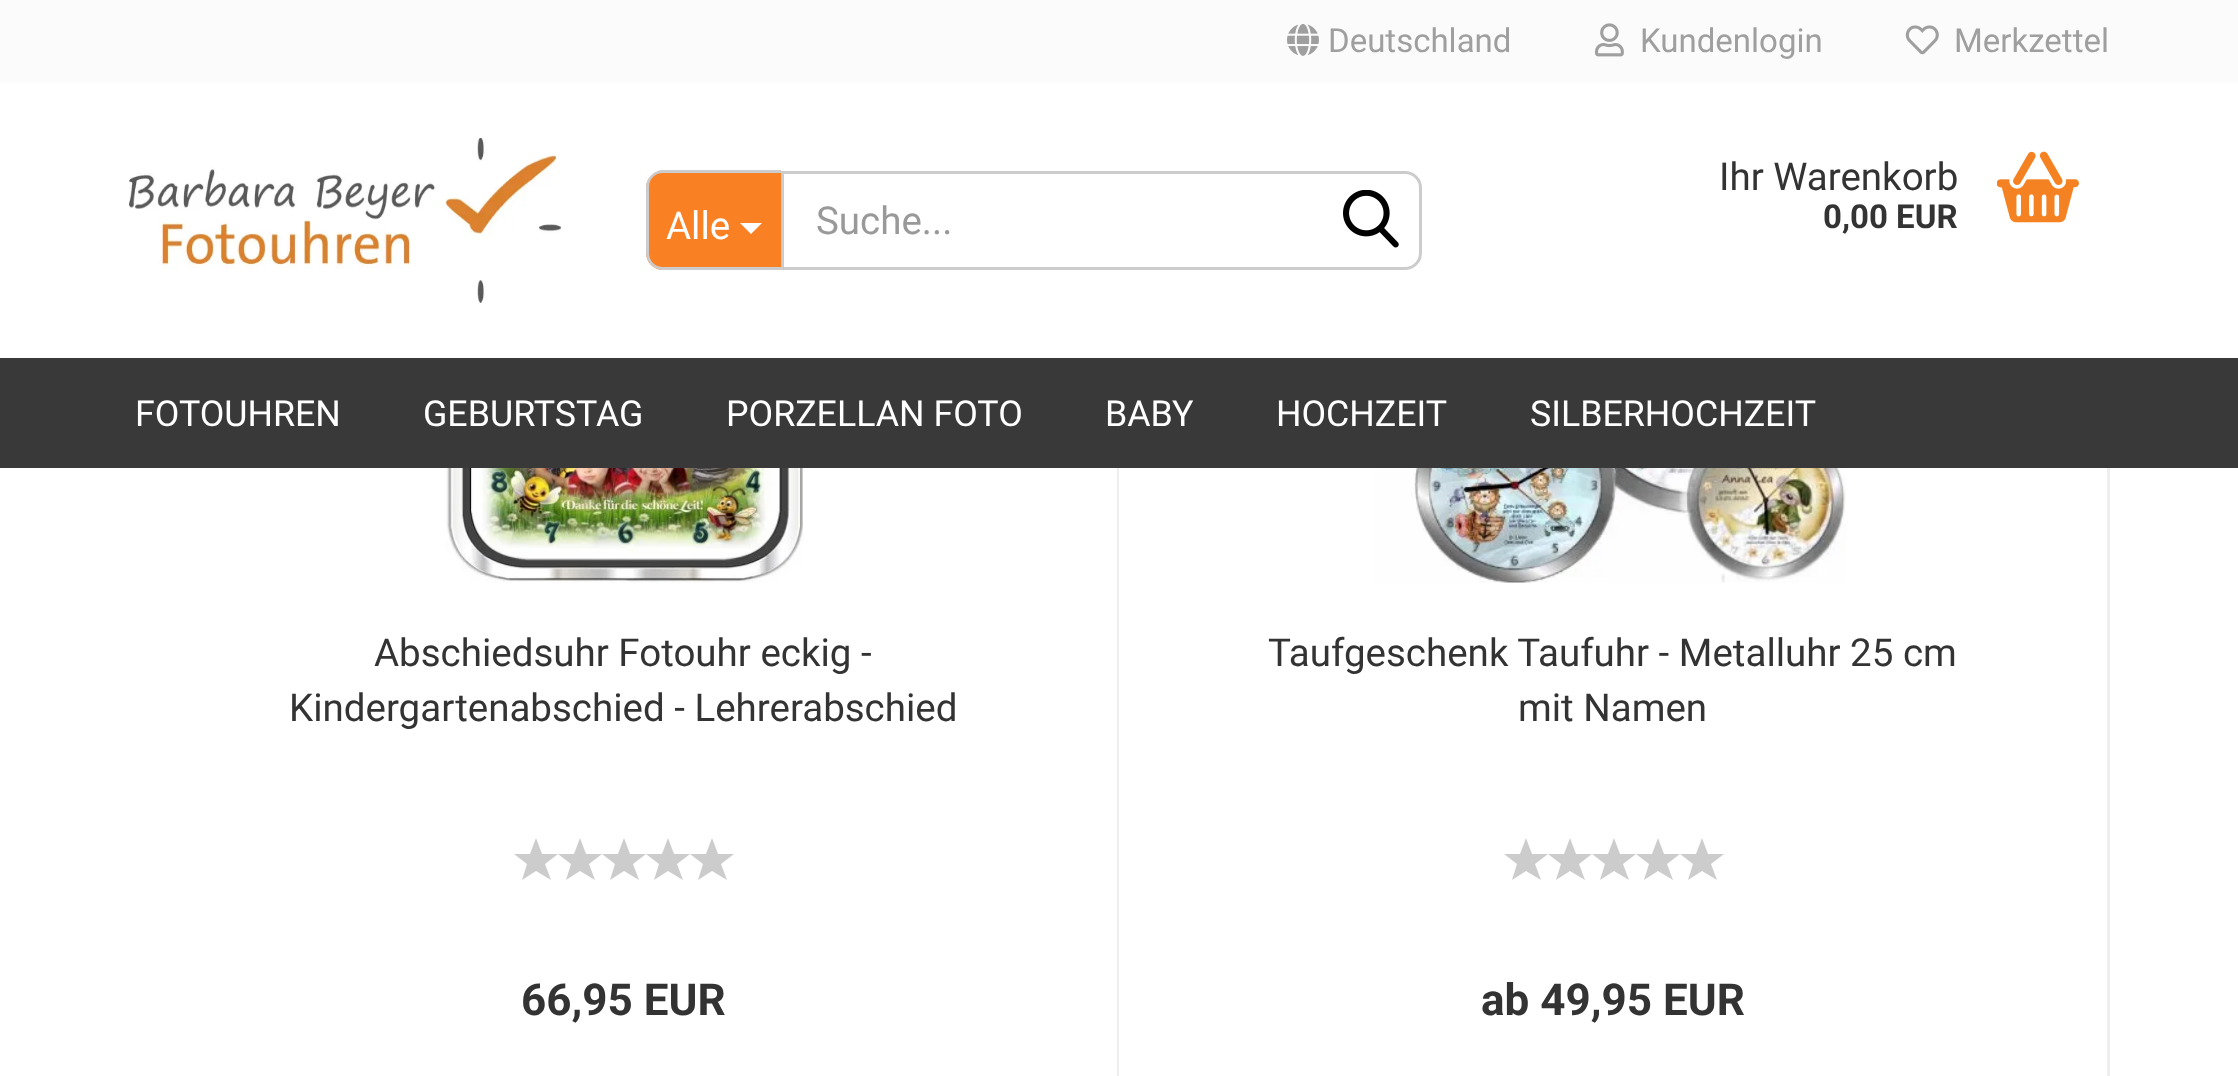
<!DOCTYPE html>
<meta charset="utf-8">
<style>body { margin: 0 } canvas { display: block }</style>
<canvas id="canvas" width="2238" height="1076"></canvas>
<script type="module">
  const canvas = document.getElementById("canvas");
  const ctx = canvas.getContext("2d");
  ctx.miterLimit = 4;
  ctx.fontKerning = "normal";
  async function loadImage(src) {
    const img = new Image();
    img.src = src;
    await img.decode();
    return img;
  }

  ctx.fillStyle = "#ffffff";
  ctx.fillRect(0, 0, 2238, 1076);
  ctx.fillStyle = "#fbfbfb";
  ctx.fillRect(0, 0, 2238, 83);
  ctx.drawImage(await loadImage("img1.png"), 1287, 24, 32, 32);
  ctx.font = "33px Roboto";
  ctx.fillStyle = "#9f9f9f";
  ctx.fillText("Deutschland", 1328, 52);
  ctx.drawImage(await loadImage("img2.png"), 1595, 23, 29, 34);
  ctx.fillText("Kundenlogin", 1640, 52);
  ctx.drawImage(await loadImage("img3.png"), 1905, 25, 34, 30);
  ctx.fillText("Merkzettel", 1954, 52);
  ctx.drawImage(await loadImage("img4.png"), 129, 138, 432, 165);
  ctx.fillStyle = "#f98123";
  ctx.beginPath();
  ctx.roundRect(646, 171, 135, 99, [17, 0, 0, 17]);
  ctx.fill();
  ctx.fillStyle = "#cccccc";
  ctx.beginPath();
  ctx.moveTo(663, 170);
  ctx.lineTo(781, 170);
  ctx.lineTo(781, 270);
  ctx.lineTo(663, 270);
  ctx.bezierCurveTo(654, 270, 646, 262, 646, 253);
  ctx.lineTo(646, 187);
  ctx.bezierCurveTo(646, 178, 654, 170, 663, 170);
  ctx.closePath();
  ctx.moveTo(663, 173);
  ctx.lineTo(781, 173);
  ctx.lineTo(781, 267);
  ctx.lineTo(663, 267);
  ctx.bezierCurveTo(655, 267, 649, 261, 649, 253);
  ctx.lineTo(649, 187);
  ctx.bezierCurveTo(649, 179, 655, 173, 663, 173);
  ctx.closePath();
  ctx.fill("evenodd");
  ctx.font = "38.5px Roboto";
  ctx.fillStyle = "#ffffff";
  ctx.fillText("Alle", 666, 239);
  ctx.beginPath();
  ctx.moveTo(740, 223);
  ctx.lineTo(762, 223);
  ctx.lineTo(751, 234);
  ctx.closePath();
  ctx.fill();
  ctx.beginPath();
  ctx.roundRect(782.5, 172.5, 638, 96, [0, 15.5, 15.5, 0]);
  ctx.strokeStyle = "#cccccc";
  ctx.lineWidth = 3;
  ctx.stroke();
  ctx.fillStyle = "#999999";
  ctx.fillText("Suche...", 816, 234);
  ctx.drawImage(await loadImage("img5.png"), 1343, 190, 56, 58);
  ctx.fillStyle = "#333333";
  ctx.fillText("Ihr Warenkorb", 1719, 190);
  ctx.font = "bold 33px Roboto";
  ctx.fillText("0,00 EUR", 1823, 228);
  ctx.drawImage(await loadImage("img6.png"), 1997, 151, 82, 72);
  ctx.fillStyle = "#393939";
  ctx.fillRect(0, 358, 2238, 110);
  ctx.font = "35.75px Roboto";
  ctx.fillStyle = "#ffffff";
  ctx.fillText("FOTOUHREN", 135, 426);
  ctx.fillText("GEBURTSTAG", 423, 426);
  ctx.fillText("PORZELLAN FOTO", 726, 426);
  ctx.fillText("BABY", 1105, 426);
  ctx.fillText("HOCHZEIT", 1276, 426);
  ctx.fillText("SILBERHOCHZEIT", 1530, 426);
  ctx.fillStyle = "#eeeeee";
  ctx.fillRect(1117, 468, 2, 608);
  ctx.drawImage(await loadImage("img7.png"), 445, 468, 358, 115);
  ctx.font = "38.5px Roboto";
  ctx.fillStyle = "#333333";
  ctx.fillText("Abschiedsuhr Fotouhr eckig -", 374, 666);
  ctx.fillText("Kindergartenabschied - Lehrerabschied", 289, 721);
  ctx.fillStyle = "#cccccc";
  ctx.beginPath();
  ctx.moveTo(536, 871);
  ctx.lineTo(522, 880);
  ctx.lineTo(527, 864);
  ctx.lineTo(514, 854);
  ctx.lineTo(530, 854);
  ctx.lineTo(536, 838);
  ctx.lineTo(542, 854);
  ctx.lineTo(558, 854);
  ctx.lineTo(545, 864);
  ctx.lineTo(551, 880);
  ctx.closePath();
  ctx.fill();
  ctx.beginPath();
  ctx.moveTo(580, 871);
  ctx.lineTo(566, 880);
  ctx.lineTo(571, 864);
  ctx.lineTo(558, 854);
  ctx.lineTo(574, 854);
  ctx.lineTo(580, 838);
  ctx.lineTo(586, 854);
  ctx.lineTo(602, 854);
  ctx.lineTo(589, 864);
  ctx.lineTo(595, 880);
  ctx.closePath();
  ctx.fill();
  ctx.beginPath();
  ctx.moveTo(624, 871);
  ctx.lineTo(610, 880);
  ctx.lineTo(615, 864);
  ctx.lineTo(602, 854);
  ctx.lineTo(618, 854);
  ctx.lineTo(624, 838);
  ctx.lineTo(630, 854);
  ctx.lineTo(646, 854);
  ctx.lineTo(633, 864);
  ctx.lineTo(639, 880);
  ctx.closePath();
  ctx.fill();
  ctx.beginPath();
  ctx.moveTo(668, 871);
  ctx.lineTo(654, 880);
  ctx.lineTo(659, 864);
  ctx.lineTo(646, 854);
  ctx.lineTo(662, 854);
  ctx.lineTo(668, 838);
  ctx.lineTo(674, 854);
  ctx.lineTo(690, 854);
  ctx.lineTo(677, 864);
  ctx.lineTo(683, 880);
  ctx.closePath();
  ctx.fill();
  ctx.beginPath();
  ctx.moveTo(712, 871);
  ctx.lineTo(698, 880);
  ctx.lineTo(703, 864);
  ctx.lineTo(690, 854);
  ctx.lineTo(706, 854);
  ctx.lineTo(712, 838);
  ctx.lineTo(718, 854);
  ctx.lineTo(734, 854);
  ctx.lineTo(721, 864);
  ctx.lineTo(727, 880);
  ctx.closePath();
  ctx.fill();
  ctx.font = "bold 44px Roboto";
  ctx.fillStyle = "#333333";
  ctx.fillText("66,95 EUR", 521, 1015);
  ctx.fillStyle = "#eeeeee";
  ctx.fillRect(2107, 468, 3, 608);
  ctx.drawImage(await loadImage("img8.png"), 1375, 468, 471, 115);
  ctx.font = "38.5px Roboto";
  ctx.fillStyle = "#333333";
  ctx.fillText("Taufgeschenk Taufuhr - Metalluhr 25 cm", 1268, 666);
  ctx.fillText("mit Namen", 1518, 721);
  ctx.fillStyle = "#cccccc";
  ctx.beginPath();
  ctx.moveTo(1526, 871);
  ctx.lineTo(1512, 880);
  ctx.lineTo(1517, 864);
  ctx.lineTo(1504, 854);
  ctx.lineTo(1520, 854);
  ctx.lineTo(1526, 838);
  ctx.lineTo(1532, 854);
  ctx.lineTo(1548, 854);
  ctx.lineTo(1535, 864);
  ctx.lineTo(1541, 880);
  ctx.closePath();
  ctx.fill();
  ctx.beginPath();
  ctx.moveTo(1570, 871);
  ctx.lineTo(1556, 880);
  ctx.lineTo(1561, 864);
  ctx.lineTo(1548, 854);
  ctx.lineTo(1564, 854);
  ctx.lineTo(1570, 838);
  ctx.lineTo(1576, 854);
  ctx.lineTo(1592, 854);
  ctx.lineTo(1579, 864);
  ctx.lineTo(1585, 880);
  ctx.closePath();
  ctx.fill();
  ctx.beginPath();
  ctx.moveTo(1614, 871);
  ctx.lineTo(1600, 880);
  ctx.lineTo(1605, 864);
  ctx.lineTo(1592, 854);
  ctx.lineTo(1608, 854);
  ctx.lineTo(1614, 838);
  ctx.lineTo(1620, 854);
  ctx.lineTo(1636, 854);
  ctx.lineTo(1623, 864);
  ctx.lineTo(1629, 880);
  ctx.closePath();
  ctx.fill();
  ctx.beginPath();
  ctx.moveTo(1658, 871);
  ctx.lineTo(1644, 880);
  ctx.lineTo(1649, 864);
  ctx.lineTo(1636, 854);
  ctx.lineTo(1652, 854);
  ctx.lineTo(1658, 838);
  ctx.lineTo(1664, 854);
  ctx.lineTo(1680, 854);
  ctx.lineTo(1667, 864);
  ctx.lineTo(1673, 880);
  ctx.closePath();
  ctx.fill();
  ctx.beginPath();
  ctx.moveTo(1702, 871);
  ctx.lineTo(1688, 880);
  ctx.lineTo(1693, 864);
  ctx.lineTo(1680, 854);
  ctx.lineTo(1696, 854);
  ctx.lineTo(1702, 838);
  ctx.lineTo(1708, 854);
  ctx.lineTo(1724, 854);
  ctx.lineTo(1711, 864);
  ctx.lineTo(1717, 880);
  ctx.closePath();
  ctx.fill();
  ctx.font = "bold 44px Roboto";
  ctx.fillStyle = "#333333";
  ctx.fillText("ab 49,95 EUR", 1481, 1015);
</script>
